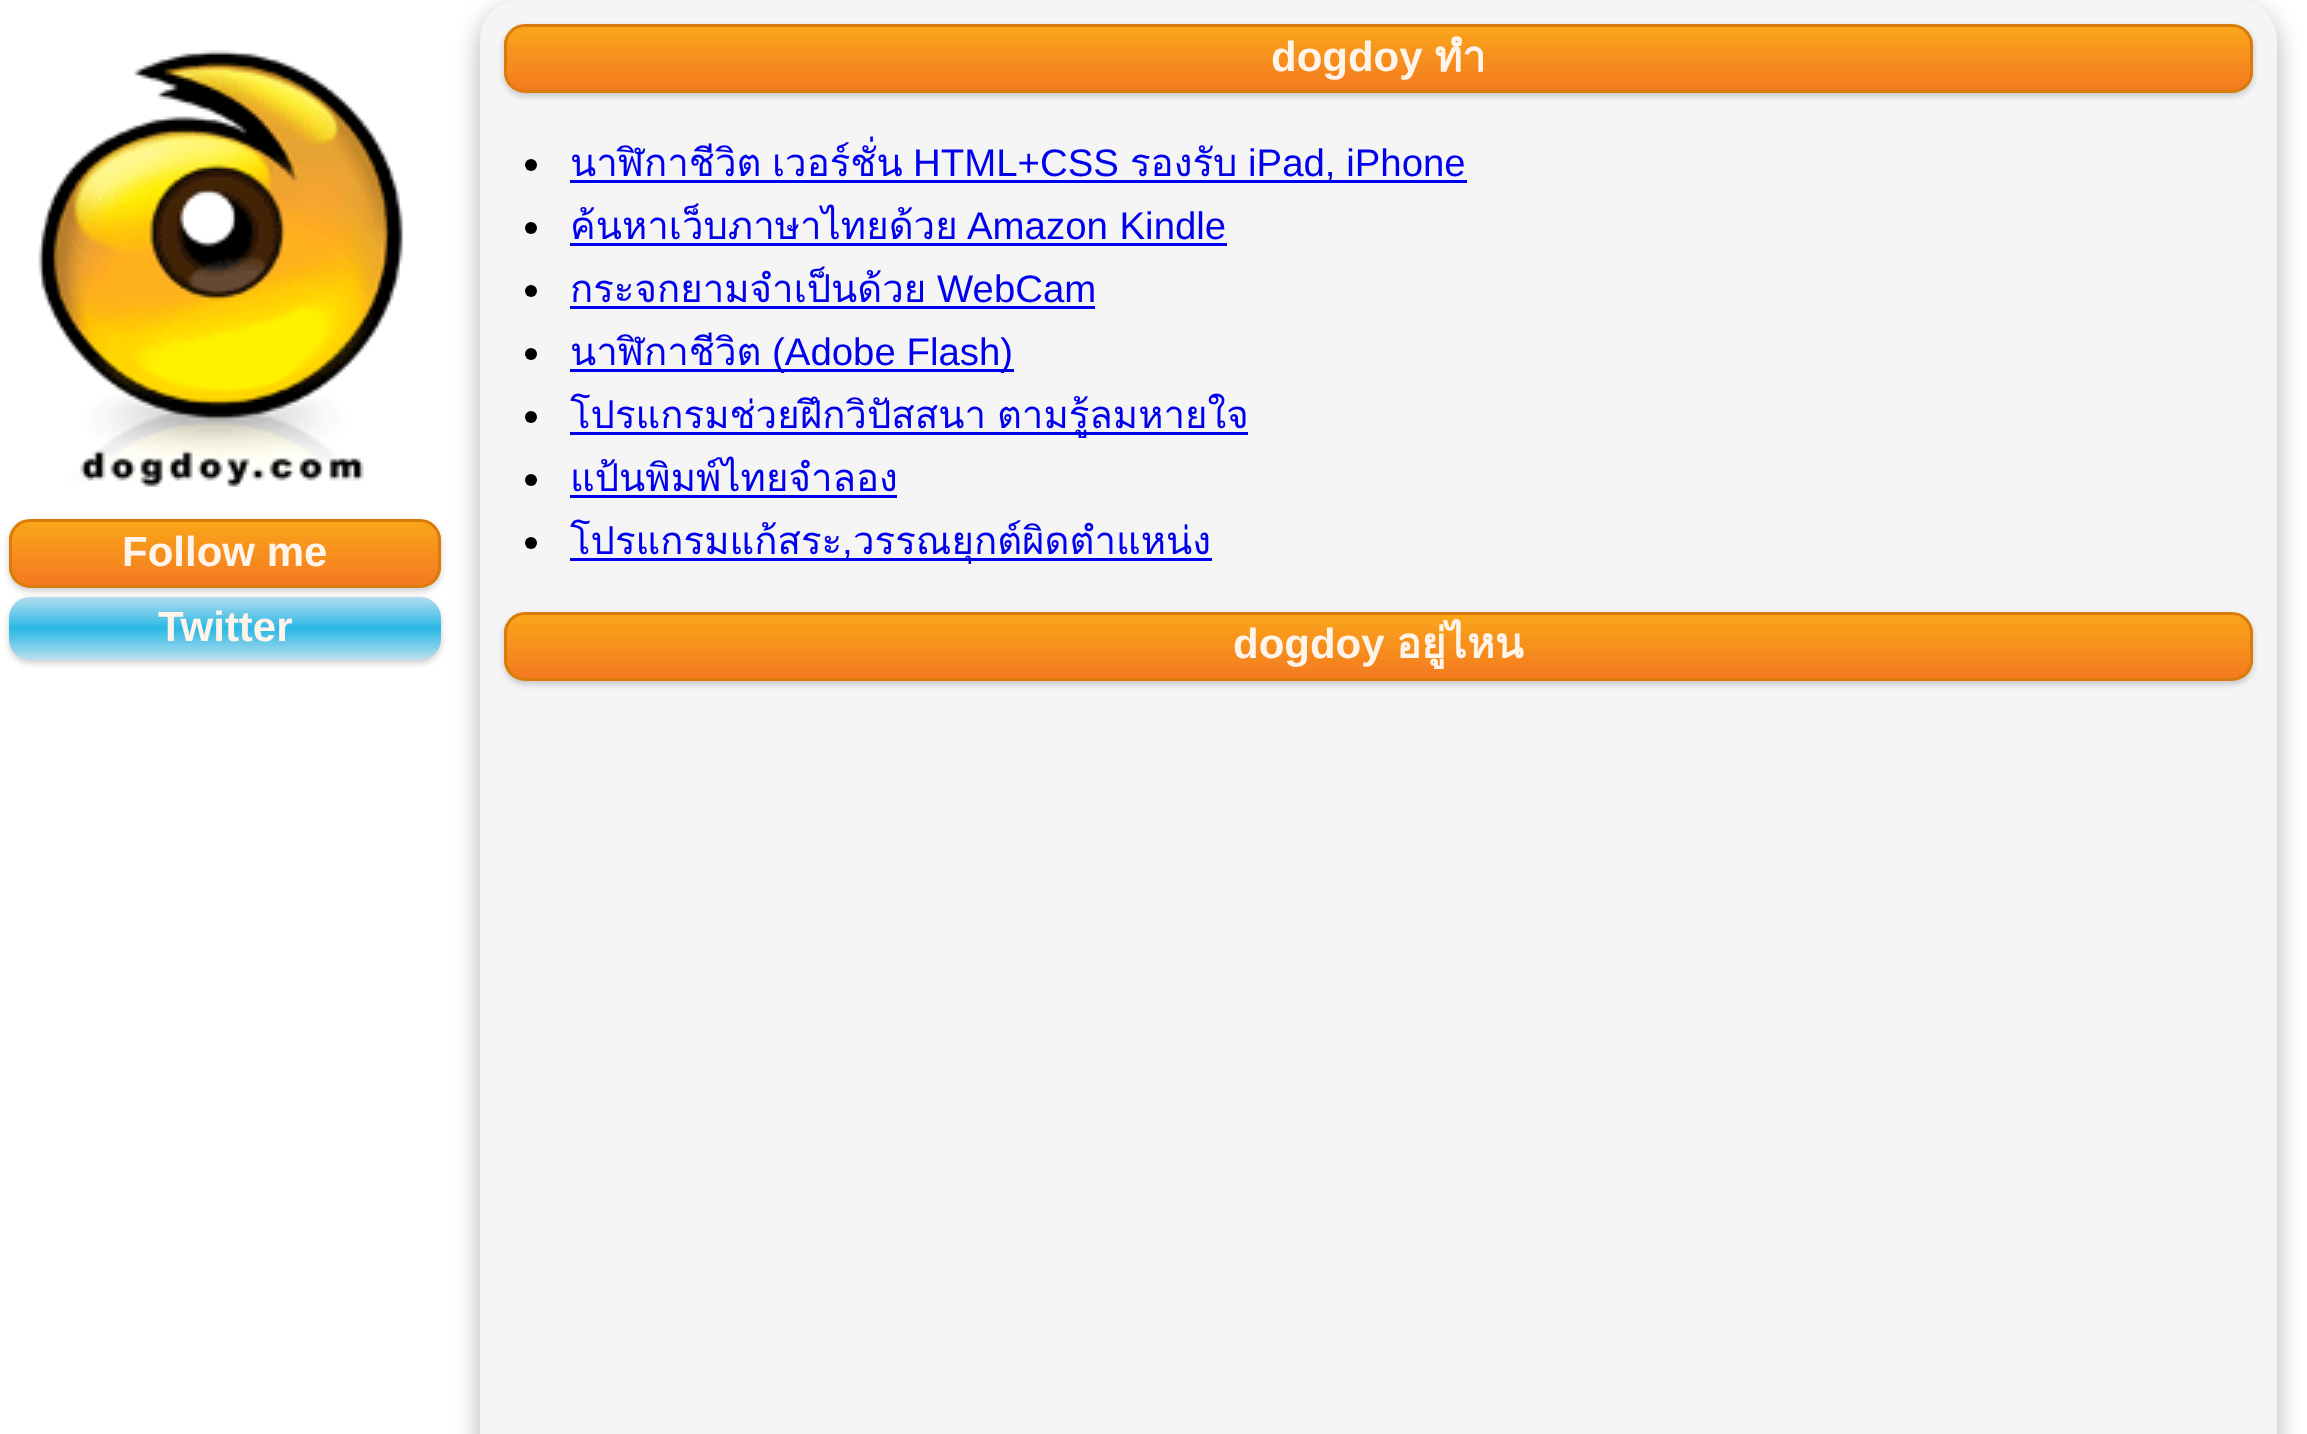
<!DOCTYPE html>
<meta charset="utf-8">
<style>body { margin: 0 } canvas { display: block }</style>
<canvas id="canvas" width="2307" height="1434"></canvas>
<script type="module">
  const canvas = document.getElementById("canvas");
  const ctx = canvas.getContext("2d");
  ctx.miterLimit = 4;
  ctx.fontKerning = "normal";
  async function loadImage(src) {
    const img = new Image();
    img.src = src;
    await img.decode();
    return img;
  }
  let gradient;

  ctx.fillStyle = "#ffffff";
  ctx.fillRect(0, 0, 2307, 1434);
  ctx.drawImage(await loadImage("img1.png"), 38, 50, 365, 437);
  ctx.fillStyle = "rgba(0, 0, 0, 0.3)";
  ctx.filter = "blur(12px)";
  ctx.beginPath();
  ctx.roundRect(480, 9, 1797, 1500, 39);
  ctx.fill();
  ctx.filter = "none";
  ctx.fillStyle = "#f5f5f5";
  ctx.beginPath();
  ctx.roundRect(480, 0, 1797, 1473, 39);
  ctx.fill();
  ctx.fillStyle = "rgba(0, 0, 0, 0.2)";
  ctx.filter = "blur(3px)";
  ctx.beginPath();
  ctx.roundRect(504, 27, 1749, 69, 21);
  ctx.fill();
  ctx.filter = "none";
  ctx.save();
  ctx.beginPath();
  ctx.roundRect(504, 24, 1749, 69, 21);
  ctx.clip();
  gradient = ctx.createLinearGradient(507, 27, 507, 90);
  gradient.addColorStop(0, "#faa51a");
  gradient.addColorStop(1, "#f47a20");
  ctx.fillStyle = gradient;
  ctx.fillRect(504, 27, 1749, 63);
  ctx.restore();
  ctx.beginPath();
  ctx.roundRect(505.5, 25.5, 1746, 66, 19.5);
  ctx.strokeStyle = "#da7c0c";
  ctx.lineWidth = 3;
  ctx.stroke();
  ctx.font = "bold 42px Liberation Sans";
  ctx.fillStyle = "#fef4e9";
  ctx.fillText("dogdoy", 1271, 71);
  ctx.font = "bold 42px Loma";
  ctx.fillText("ทำ", 1435, 71);
  ctx.fillStyle = "#000000";
  ctx.beginPath();
  ctx.arc(531, 165, 6, 0, Math.PI * 2);
  ctx.fill();
  ctx.font = "38.4px Loma";
  ctx.fillStyle = "#0000ee";
  ctx.fillText("นาฬิกาชีวิต", 570, 176);
  ctx.fillText("เวอร์ชั่น", 772, 176);
  ctx.font = "38.4px Liberation Sans";
  ctx.fillText("HTML+CSS", 913, 176);
  ctx.font = "38.4px Loma";
  ctx.fillText("รองรับ", 1130, 176);
  ctx.fillRect(570, 180, 897, 3);
  ctx.font = "38.4px Liberation Sans";
  ctx.fillText("iPad, iPhone", 1248, 176);
  ctx.fillStyle = "#000000";
  ctx.beginPath();
  ctx.arc(531, 228, 6, 0, Math.PI * 2);
  ctx.fill();
  ctx.font = "38.4px Loma";
  ctx.fillStyle = "#0000ee";
  ctx.fillText("ค้นหาเว็บภาษาไทยด้วย", 570, 239);
  ctx.wordSpacing = "1px";
  ctx.font = "38.4px Liberation Sans";
  ctx.fillText("Amazon Kindle", 967, 239);
  ctx.fillRect(570, 243, 657, 3);
  ctx.fillStyle = "#000000";
  ctx.beginPath();
  ctx.arc(531, 291, 6, 0, Math.PI * 2);
  ctx.fill();
  ctx.wordSpacing = "0px";
  ctx.font = "38.4px Loma";
  ctx.fillStyle = "#0000ee";
  ctx.fillText("กระจกยามจำเป็นด้วย", 570, 302);
  ctx.font = "38.4px Liberation Sans";
  ctx.fillText("WebCam", 937, 302);
  ctx.fillRect(570, 306, 525, 3);
  ctx.fillStyle = "#000000";
  ctx.beginPath();
  ctx.arc(531, 354, 6, 0, Math.PI * 2);
  ctx.fill();
  ctx.font = "38.4px Loma";
  ctx.fillStyle = "#0000ee";
  ctx.fillText("นาฬิกาชีวิต", 570, 365);
  ctx.fillRect(570, 369, 444, 3);
  ctx.font = "38.4px Liberation Sans";
  ctx.fillText("(Adobe Flash)", 772, 365);
  ctx.fillStyle = "#000000";
  ctx.beginPath();
  ctx.arc(531, 417, 6, 0, Math.PI * 2);
  ctx.fill();
  ctx.fillStyle = "#0000ee";
  ctx.fillRect(570, 432, 678, 3);
  ctx.wordSpacing = "-2px";
  ctx.font = "38.4px Loma";
  ctx.fillText("โปรแกรมช่วยฝึกวิปัสสนา ตามรู้ลมหายใจ", 570, 428);
  ctx.fillStyle = "#000000";
  ctx.beginPath();
  ctx.arc(531, 480, 6, 0, Math.PI * 2);
  ctx.fill();
  ctx.wordSpacing = "0px";
  ctx.fillStyle = "#0000ee";
  ctx.fillText("แป้นพิมพ์ไทยจำลอง", 570, 491);
  ctx.fillRect(570, 495, 327, 3);
  ctx.fillStyle = "#000000";
  ctx.beginPath();
  ctx.arc(531, 543, 6, 0, Math.PI * 2);
  ctx.fill();
  ctx.fillStyle = "#0000ee";
  ctx.fillText("โปรแกรมแก้สระ", 570, 554);
  ctx.fillRect(570, 558, 642, 3);
  ctx.fillText("วรรณยุกต์ผิดตำแหน่ง", 853, 554);
  ctx.font = "38.4px Liberation Sans";
  ctx.fillText(",", 842, 554);
  ctx.fillStyle = "rgba(0, 0, 0, 0.2)";
  ctx.filter = "blur(3px)";
  ctx.beginPath();
  ctx.roundRect(504, 615, 1749, 69, 21);
  ctx.fill();
  ctx.filter = "none";
  ctx.save();
  ctx.beginPath();
  ctx.roundRect(504, 612, 1749, 69, 21);
  ctx.clip();
  gradient = ctx.createLinearGradient(507, 615, 507, 678);
  gradient.addColorStop(0, "#faa51a");
  gradient.addColorStop(1, "#f47a20");
  ctx.fillStyle = gradient;
  ctx.fillRect(504, 615, 1749, 63);
  ctx.restore();
  ctx.beginPath();
  ctx.roundRect(505.5, 613.5, 1746, 66, 19.5);
  ctx.stroke();
  ctx.font = "bold 42px Liberation Sans";
  ctx.fillStyle = "#fef4e9";
  ctx.fillText("dogdoy", 1233, 658);
  ctx.font = "bold 42px Loma";
  ctx.fillText("อยู่ไหน", 1396, 658);
  ctx.fillStyle = "rgba(0, 0, 0, 0.2)";
  ctx.filter = "blur(3px)";
  ctx.beginPath();
  ctx.roundRect(9, 522, 432, 69, 21);
  ctx.fill();
  ctx.filter = "none";
  ctx.save();
  ctx.beginPath();
  ctx.roundRect(9, 519, 432, 69, 21);
  ctx.clip();
  gradient = ctx.createLinearGradient(12, 522, 12, 585);
  gradient.addColorStop(0, "#faa51a");
  gradient.addColorStop(1, "#f47a20");
  ctx.fillStyle = gradient;
  ctx.fillRect(9, 522, 432, 63);
  ctx.restore();
  ctx.beginPath();
  ctx.roundRect(10.5, 520.5, 429, 66, 19.5);
  ctx.stroke();
  ctx.font = "bold 42px Liberation Sans";
  ctx.fillStyle = "#fef4e9";
  ctx.fillText("Follow me", 122, 566);
  ctx.fillStyle = "rgba(0, 0, 0, 0.2)";
  ctx.filter = "blur(3px)";
  ctx.beginPath();
  ctx.roundRect(9, 600, 432, 63, 21);
  ctx.fill();
  ctx.filter = "none";
  gradient = ctx.createLinearGradient(225, 597, 225, 660);
  gradient.addColorStop(0, "#b3dced");
  gradient.addColorStop(0.5, "#29b8e5");
  gradient.addColorStop(1, "#bce0ee");
  ctx.fillStyle = gradient;
  ctx.beginPath();
  ctx.roundRect(9, 597, 432, 63, 21);
  ctx.fill();
  ctx.fillStyle = "#fef4e9";
  ctx.fillText("Twitter", 158, 641);
</script>
